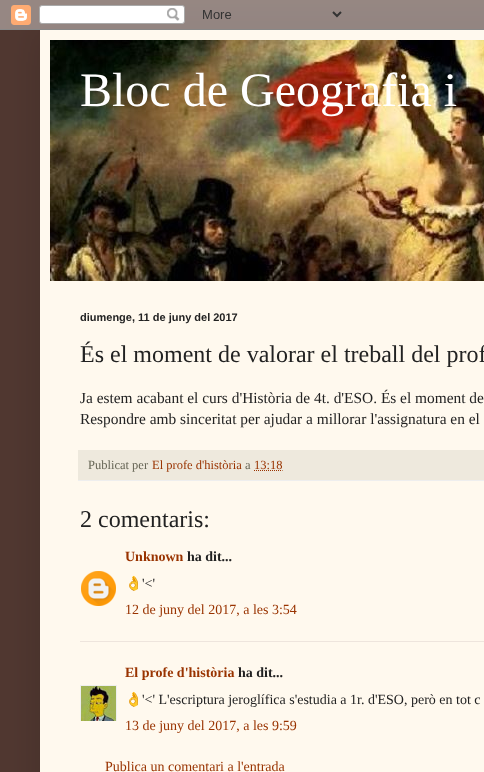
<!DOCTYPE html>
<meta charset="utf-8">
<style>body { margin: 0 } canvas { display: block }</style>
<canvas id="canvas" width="484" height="772"></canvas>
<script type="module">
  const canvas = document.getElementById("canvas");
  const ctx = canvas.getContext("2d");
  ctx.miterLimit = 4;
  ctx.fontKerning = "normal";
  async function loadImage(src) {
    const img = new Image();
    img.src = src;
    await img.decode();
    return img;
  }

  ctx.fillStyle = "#513831";
  ctx.fillRect(0, 0, 484, 772);
  ctx.fillStyle = "rgba(0, 0, 0, 0.15)";
  ctx.filter = "blur(20px)";
  ctx.beginPath();
  ctx.rect(40, 30, 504, 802);
  ctx.fill();
  ctx.filter = "none";
  ctx.drawImage(await loadImage("img1.png"), 0, 0, 484, 30);
  ctx.fillStyle = "#fff9ee";
  ctx.fillRect(40, 30, 444, 742);
  ctx.drawImage(await loadImage("img2.png"), 50, 40, 434, 241);
  ctx.font = "48px Liberation Serif";
  ctx.fillStyle = "#ffffff";
  ctx.fillText("Bloc de Geografia i", 80, 106);
  ctx.font = "bold 11px Liberation Sans";
  ctx.fillStyle = "#222222";
  ctx.fillText("diumenge, 11 de juny del 2017", 80, 321);
  ctx.font = "24px Liberation Serif";
  ctx.fillText("És el moment de valorar el treball del prof", 80, 362);
  ctx.font = "15.4px Liberation Serif";
  ctx.fillText("Ja estem acabant el curs d'Història de 4t. d'ESO. És el moment de", 80, 403);
  ctx.fillText("Respondre amb sinceritat per ajudar a millorar l'assignatura en el", 80, 424);
  ctx.fillStyle = "#eee9dd";
  ctx.fillRect(78, 450, 406, 30);
  ctx.fillStyle = "#eeeeee";
  ctx.fillRect(78, 480, 406, 1);
  ctx.font = "12.5px Liberation Serif";
  ctx.fillStyle = "#666555";
  ctx.fillText("Publicat per", 88, 469);
  ctx.fillStyle = "#993300";
  ctx.fillText("El profe d'història", 152, 469);
  ctx.fillStyle = "#666555";
  ctx.fillText("a", 245, 469);
  ctx.beginPath();
  ctx.moveTo(254, 470.5);
  ctx.lineTo(282.5, 470.5);
  ctx.strokeStyle = "#993300";
  ctx.setLineDash([1, 1]);
  ctx.stroke();
  ctx.fillStyle = "#993300";
  ctx.fillText("13:18", 254, 469);
  ctx.font = "24px Liberation Serif";
  ctx.fillStyle = "#222222";
  ctx.fillText("2 comentaris:", 80, 527);
  ctx.font = "bold 14px Liberation Serif";
  ctx.fillStyle = "#993300";
  ctx.fillText("Unknown", 125, 561);
  ctx.fillStyle = "#222222";
  ctx.fillText("ha dit...", 187, 561);
  ctx.drawImage(await loadImage("img3.png"), 81, 571, 35, 35);
  ctx.font = "14px Noto Color Emoji";
  ctx.fillText("👌", 125, 588);
  ctx.font = "14px Liberation Serif";
  ctx.fillText("'<'", 142, 588);
  ctx.fillStyle = "#993300";
  ctx.fillText("12 de juny del 2017, a les 3:54", 125, 614);
  ctx.fillStyle = "#eee5dd";
  ctx.fillRect(80, 641, 404, 1);
  ctx.font = "bold 14px Liberation Serif";
  ctx.fillStyle = "#993300";
  ctx.fillText("El profe d'història", 125, 677);
  ctx.fillStyle = "#222222";
  ctx.fillText("ha dit...", 238, 677);
  ctx.save();
  ctx.beginPath();
  ctx.rect(80, 685, 37, 36);
  ctx.clip();
  ctx.strokeStyle = "#eeeeee";
  ctx.setLineDash([]);
  ctx.strokeRect(80.5, 685.5, 36, 36);
  ctx.restore();
  ctx.drawImage(await loadImage("img4.png"), 81, 686, 35, 35);
  ctx.font = "14px Noto Color Emoji";
  ctx.fillText("👌", 125, 704);
  ctx.font = "14px Liberation Serif";
  ctx.fillText("'<' L'escriptura jeroglífica s'estudia a 1r. d'ESO, però en tot c", 142, 704);
  ctx.fillStyle = "#993300";
  ctx.fillText("13 de juny del 2017, a les 9:59", 125, 730);
  ctx.fillText("Publica un comentari a l'entrada", 105, 771);
</script>
